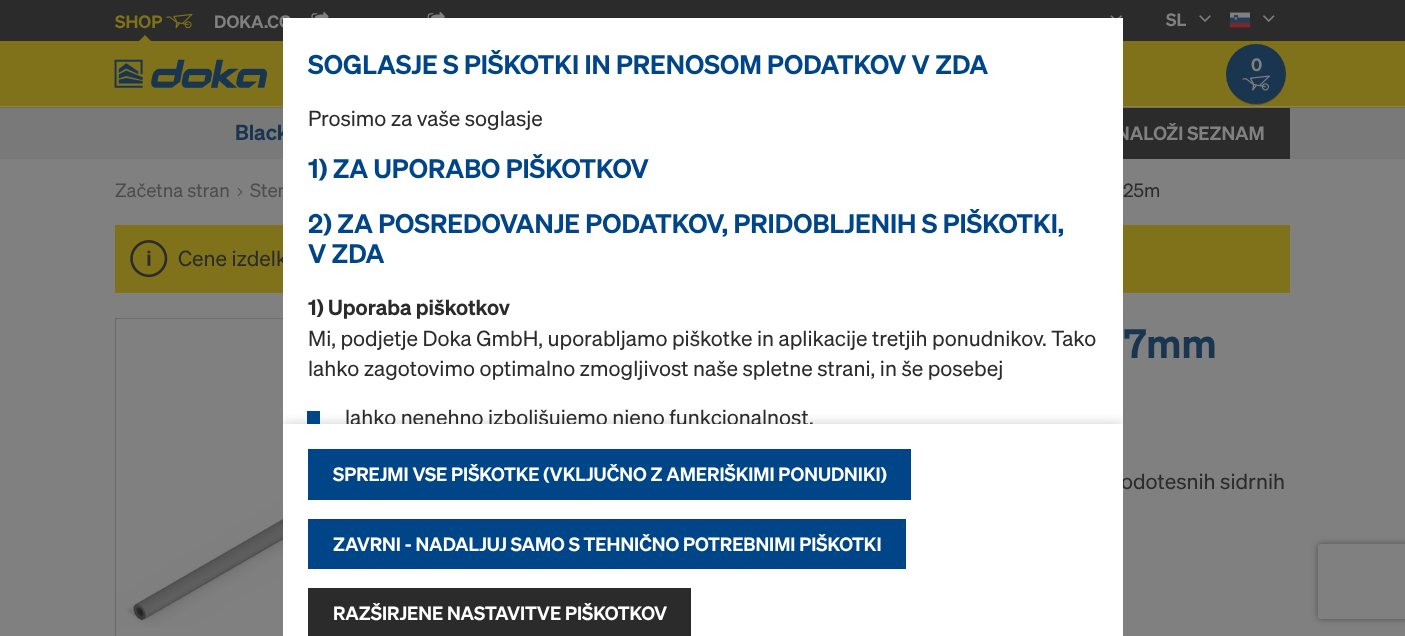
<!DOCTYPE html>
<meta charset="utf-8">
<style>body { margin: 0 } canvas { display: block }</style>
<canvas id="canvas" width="1405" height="636"></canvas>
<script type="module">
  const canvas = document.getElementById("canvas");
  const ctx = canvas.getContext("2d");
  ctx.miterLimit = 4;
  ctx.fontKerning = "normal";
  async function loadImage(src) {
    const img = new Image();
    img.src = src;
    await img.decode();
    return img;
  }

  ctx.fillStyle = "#808080";
  ctx.fillRect(0, 0, 1405, 636);
  ctx.fillStyle = "#2b2b2b";
  ctx.fillRect(0, 0, 1405, 41);
  ctx.font = "600 17.5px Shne";
  ctx.fillStyle = "#80721a";
  ctx.fillText("SHOP", 115, 28);
  ctx.drawImage(await loadImage("img1.png"), 166, 13, 27, 16);
  ctx.fillRect(0, 41, 1405, 67);
  ctx.beginPath();
  ctx.moveTo(154, 44);
  ctx.lineTo(136, 44);
  ctx.lineTo(145, 35);
  ctx.closePath();
  ctx.fill();
  ctx.fillStyle = "#808080";
  ctx.fillText("DOKA.CO", 214, 28);
  ctx.drawImage(await loadImage("img2.png"), 311, 11, 18, 7);
  ctx.drawImage(await loadImage("img3.png"), 427, 11, 18, 7);
  ctx.drawImage(await loadImage("img4.png"), 1110, 15, 12, 3);
  ctx.fillText("SL", 1166, 26);
  ctx.drawImage(await loadImage("img5.png"), 1199, 15, 12, 7);
  ctx.drawImage(await loadImage("img6.png"), 1230, 12, 20, 16);
  ctx.drawImage(await loadImage("img7.png"), 1263, 15, 12, 7);
  ctx.fillRect(0, 106, 1405, 1);
  ctx.drawImage(await loadImage("img8.png"), 114, 59, 153, 29);
  ctx.fillStyle = "#5c531a";
  ctx.beginPath();
  ctx.moveTo(1286, 80);
  ctx.bezierCurveTo(1279, 108, 1240, 112, 1229, 85);
  ctx.bezierCurveTo(1226, 80, 1226, 74, 1227, 68);
  ctx.bezierCurveTo(1221, 96, 1253, 116, 1275, 98);
  ctx.bezierCurveTo(1281, 93, 1284, 87, 1286, 80);
  ctx.closePath();
  ctx.fill();
  ctx.fillStyle = "#1a3550";
  ctx.beginPath();
  ctx.arc(1256, 74, 30, 0, Math.PI * 2);
  ctx.fill();
  ctx.fillStyle = "#808080";
  ctx.fillText("0", 1251, 71);
  ctx.drawImage(await loadImage("img9.png"), 1242, 75, 28, 16);
  ctx.fillStyle = "#797979";
  ctx.fillRect(0, 108, 1405, 51);
  ctx.font = "600 21.25px Shne";
  ctx.fillStyle = "#1a3550";
  ctx.fillText("Black", 235, 140);
  ctx.fillStyle = "#2b2b2b";
  ctx.fillRect(1123, 108, 167, 51);
  ctx.font = "600 18.75px Shne";
  ctx.fillStyle = "#808080";
  ctx.fillText("NALOŽI SEZNAM", 1116, 140);
  ctx.font = "18.75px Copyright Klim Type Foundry";
  ctx.fillStyle = "#4d4d4d";
  ctx.fillText("Začetna stran", 115, 197);
  ctx.drawImage(await loadImage("img10.png"), 237, 188, 6, 8);
  ctx.fillText("Sten", 250, 197);
  ctx.fillStyle = "#2b2b2b";
  ctx.fillText("25m", 1123, 197);
  ctx.fillStyle = "#80721a";
  ctx.fillRect(115, 225, 1175, 68);
  ctx.drawImage(await loadImage("img11.png"), 130, 240, 38, 38);
  ctx.font = "21.25px Copyright Klim Type Foundry";
  ctx.fillStyle = "#2b2b2b";
  ctx.fillText("Cene izdelk", 178, 266);
  ctx.strokeStyle = "#686868";
  ctx.strokeRect(115.5, 318.5, 390, 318);
  ctx.drawImage(await loadImage("img12.png"), 116, 318, 167, 310);
  ctx.font = "600 40px Shne";
  ctx.fillStyle = "#1a3550";
  ctx.fillText("7mm", 1124, 358);
  ctx.font = "21.25px Copyright Klim Type Foundry";
  ctx.fillStyle = "#2b2b2b";
  ctx.fillText("odotesnih sidrnih", 1121, 489);
  ctx.fillStyle = "#ffffff";
  ctx.fillRect(283, 18, 840, 406);
  ctx.font = "600 26.25px Shne";
  ctx.fillStyle = "#004588";
  ctx.fillText("SOGLASJE S PIŠKOTKI IN PRENOSOM PODATKOV V ZDA", 308, 74);
  ctx.font = "21.25px Copyright Klim Type Foundry";
  ctx.fillStyle = "#2b2b2b";
  ctx.fillText("Prosimo za vaše soglasje", 308, 126);
  ctx.font = "600 26.25px Shne";
  ctx.fillStyle = "#004588";
  ctx.fillText("1) ZA UPORABO PIŠKOTKOV", 308, 178);
  ctx.fillText("2) ZA POSREDOVANJE PODATKOV, PRIDOBLJENIH S PIŠKOTKI,", 308, 233);
  ctx.fillText("V ZDA", 308, 263);
  ctx.font = "600 21.25px Shne";
  ctx.fillStyle = "#2b2b2b";
  ctx.fillText("1) Uporaba piškotkov", 308, 315);
  ctx.font = "21.25px Copyright Klim Type Foundry";
  ctx.fillText("Mi, podjetje Doka GmbH, uporabljamo piškotke in aplikacije tretjih ponudnikov. Tako", 308, 346);
  ctx.fillText("lahko zagotovimo optimalno zmogljivost naše spletne strani, in še posebej", 308, 376);
  ctx.save();
  ctx.beginPath();
  ctx.rect(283, 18, 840, 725);
  ctx.clip();
  ctx.fillStyle = "rgba(0, 0, 0, 0.2)";
  ctx.filter = "blur(6px)";
  ctx.beginPath();
  ctx.rect(283, 424, 840, 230);
  ctx.fill();
  ctx.filter = "none";
  ctx.restore();
  ctx.fillStyle = "#004588";
  ctx.fillRect(307, 411, 13, 13);
  ctx.save();
  ctx.beginPath();
  ctx.rect(283, 24, 833, 400);
  ctx.clip();
  ctx.fillStyle = "#2b2b2b";
  ctx.fillText("lahko nenehno izboljšujemo njeno funkcionalnost,", 345, 425);
  ctx.restore();
  ctx.fillStyle = "#ffffff";
  ctx.fillRect(283, 424, 840, 212);
  ctx.fillStyle = "#004588";
  ctx.fillRect(308, 449, 603, 51);
  ctx.font = "600 18.75px Shne";
  ctx.fillStyle = "#ffffff";
  ctx.fillText("SPREJMI VSE PIŠKOTKE (VKLJUČNO Z AMERIŠKIMI PONUDNIKI)", 333, 481);
  ctx.fillStyle = "#004588";
  ctx.fillRect(308, 519, 598, 50);
  ctx.fillStyle = "#ffffff";
  ctx.fillText("ZAVRNI - NADALJUJ SAMO S TEHNIČNO POTREBNIMI PIŠKOTKI", 333, 551);
  ctx.fillStyle = "#2b2b2b";
  ctx.fillRect(308, 588, 383, 48);
  ctx.fillStyle = "#ffffff";
  ctx.fillText("RAZŠIRJENE NASTAVITVE PIŠKOTKOV", 333, 620);
  ctx.save();
  ctx.beginPath();
  ctx.moveTo(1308, 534);
  ctx.lineTo(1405, 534);
  ctx.lineTo(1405, 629);
  ctx.lineTo(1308, 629);
  ctx.closePath();
  ctx.moveTo(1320.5, 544);
  ctx.lineTo(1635.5, 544);
  ctx.bezierCurveTo(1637, 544, 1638, 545, 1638, 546.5);
  ctx.lineTo(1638, 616.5);
  ctx.bezierCurveTo(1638, 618, 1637, 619, 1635.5, 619);
  ctx.lineTo(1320.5, 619);
  ctx.bezierCurveTo(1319, 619, 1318, 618, 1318, 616.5);
  ctx.lineTo(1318, 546.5);
  ctx.bezierCurveTo(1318, 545, 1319, 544, 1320.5, 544);
  ctx.closePath();
  ctx.clip("evenodd");
  ctx.fillStyle = "#4d4d4d";
  ctx.filter = "blur(3px)";
  ctx.beginPath();
  ctx.roundRect(1318, 544, 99, 75, 2.5);
  ctx.fill();
  ctx.filter = "none";
  ctx.restore();
</script>
